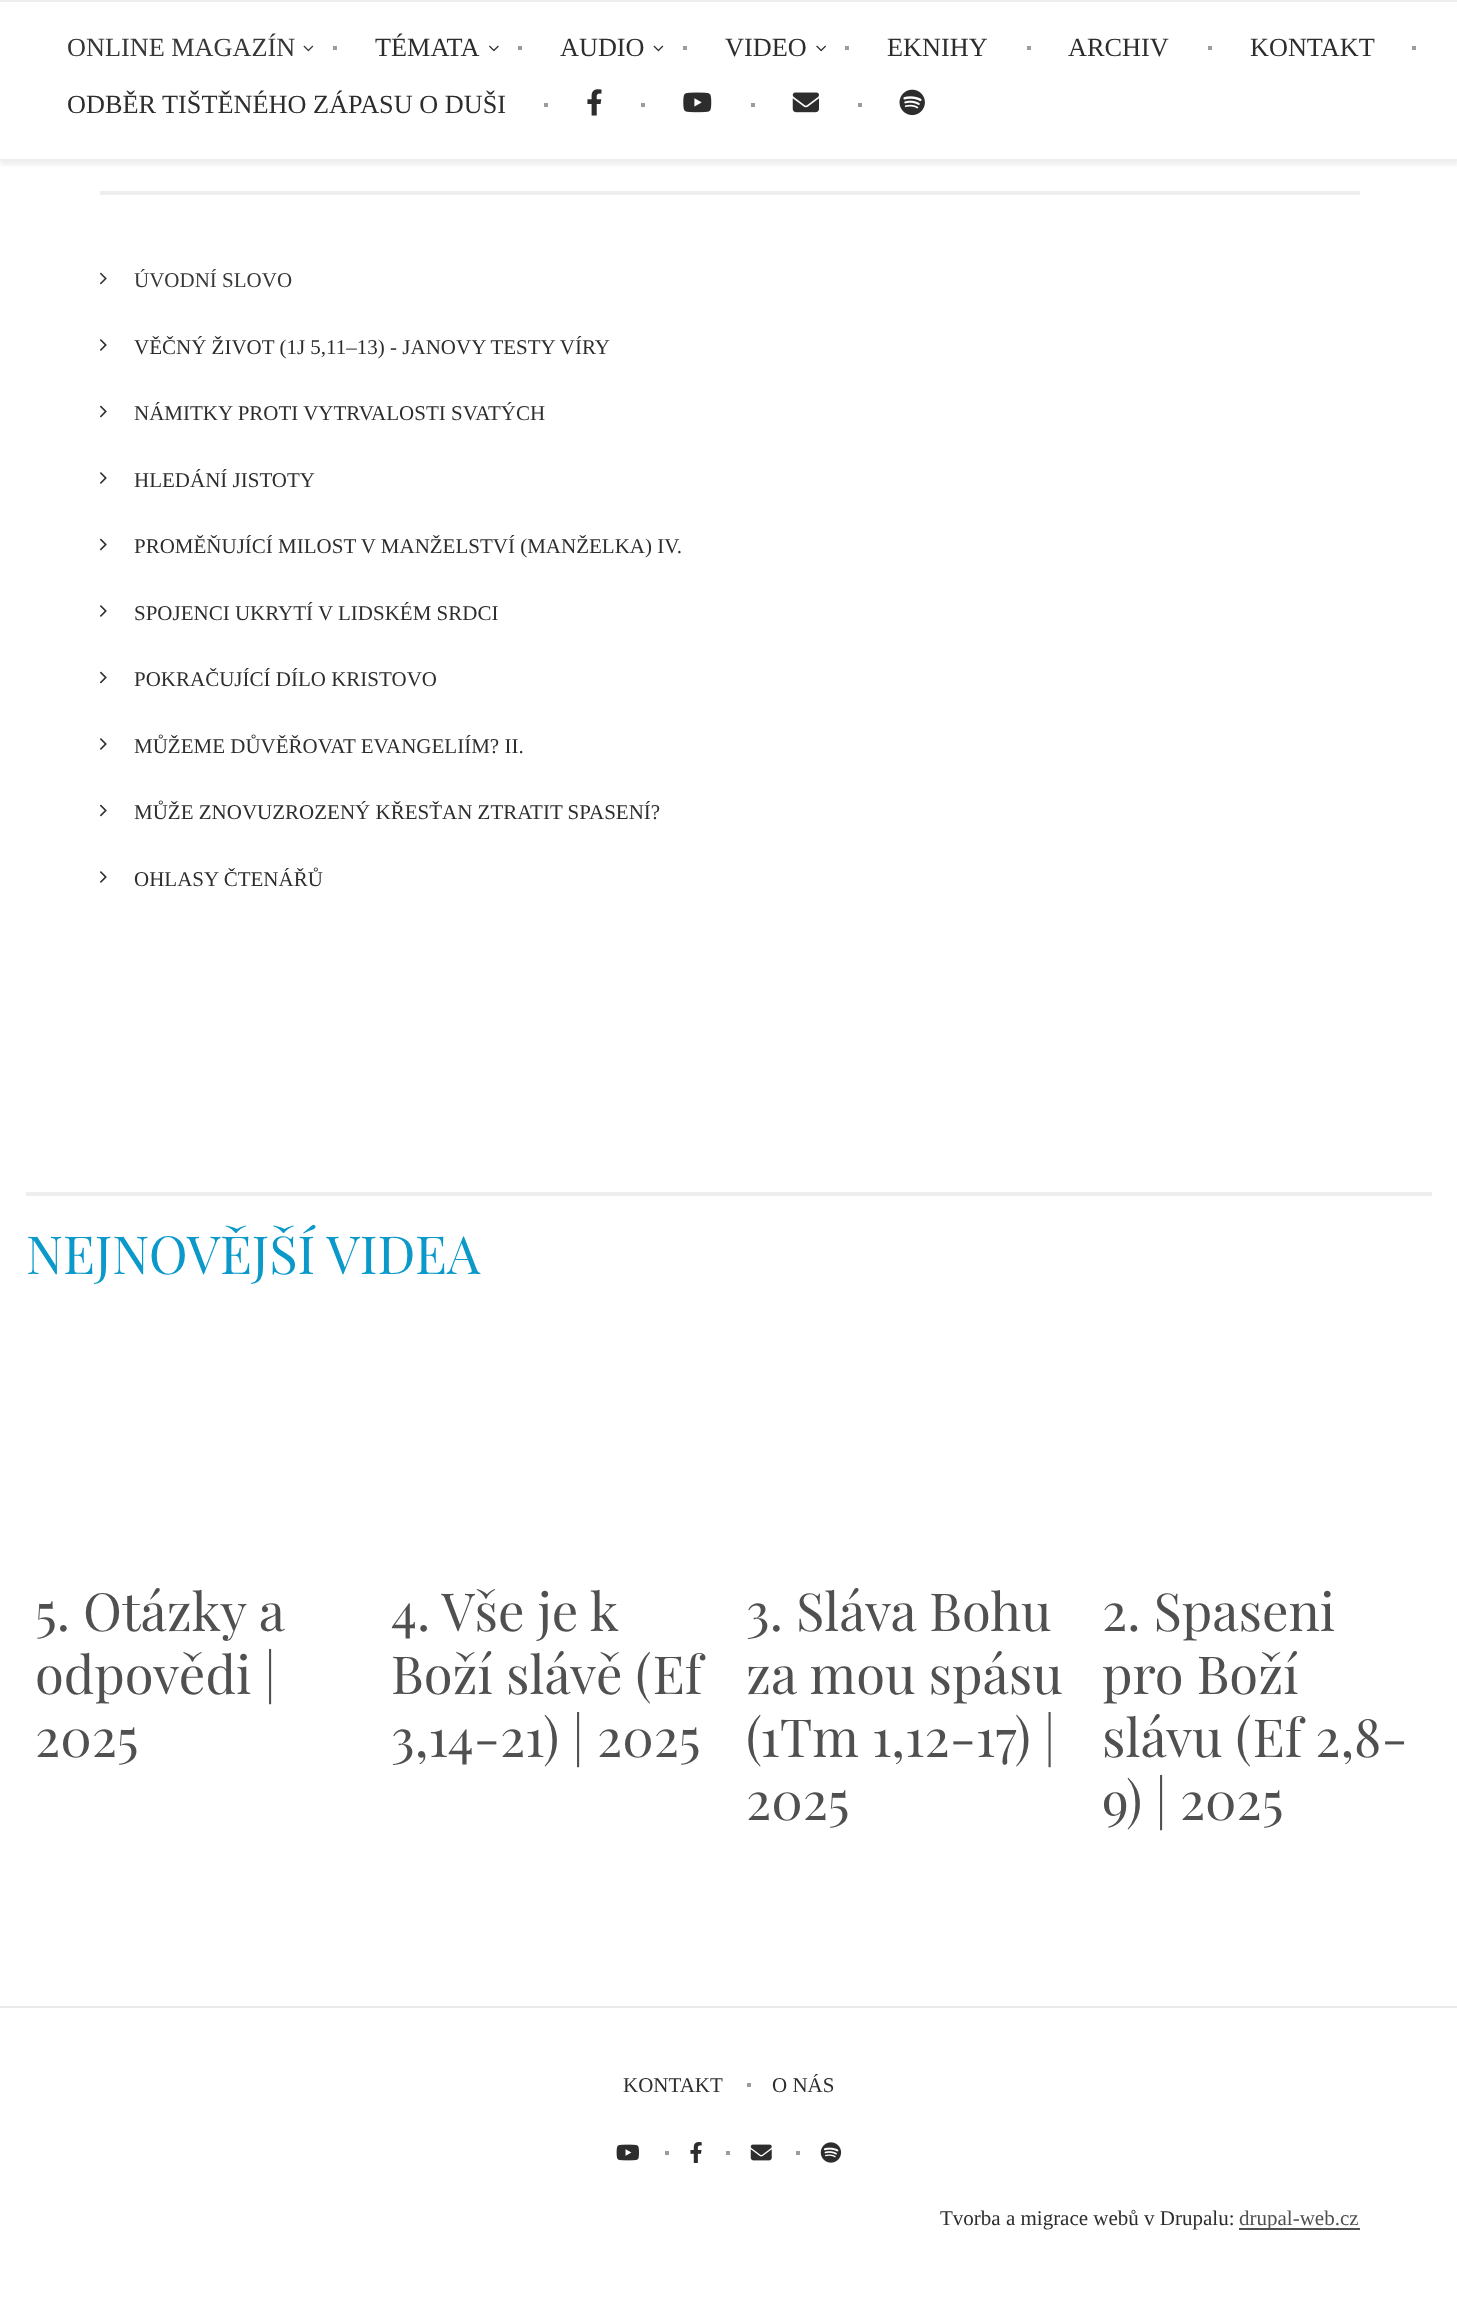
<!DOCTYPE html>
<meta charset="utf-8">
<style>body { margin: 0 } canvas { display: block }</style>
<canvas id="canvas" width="1457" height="2302"></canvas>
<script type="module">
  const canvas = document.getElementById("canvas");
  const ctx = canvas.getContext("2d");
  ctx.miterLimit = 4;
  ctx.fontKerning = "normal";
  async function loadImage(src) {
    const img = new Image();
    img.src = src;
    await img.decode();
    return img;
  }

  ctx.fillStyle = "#ffffff";
  ctx.fillRect(0, 0, 1457, 2302);
  ctx.save();
  ctx.beginPath();
  ctx.rect(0, 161, 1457, 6);
  ctx.clip();
  ctx.fillStyle = "rgba(100, 100, 100, 0.1)";
  ctx.filter = "blur(2px)";
  ctx.beginPath();
  ctx.rect(0, 4, 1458, 161);
  ctx.fill();
  ctx.filter = "none";
  ctx.restore();
  ctx.fillStyle = "#eeeeee";
  ctx.fillRect(0, 0, 1457, 2);
  ctx.fillRect(0, 159, 1457, 2);
  ctx.font = "26.25px Liberation Serif";
  ctx.fillStyle = "#373737";
  ctx.fillText("ONLINE MAGAZÍN", 67, 56);
  ctx.drawImage(await loadImage("img1.png"), 303, 45, 11, 7);
  ctx.fillStyle = "#9c9c9c";
  ctx.fillRect(333, 46, 4, 4);
  ctx.fillStyle = "#2d2d2d";
  ctx.fillText("TÉMATA", 375, 56);
  ctx.drawImage(await loadImage("img2.png"), 489, 45, 10, 7);
  ctx.fillStyle = "#9c9c9c";
  ctx.fillRect(518, 46, 4, 4);
  ctx.fillStyle = "#2d2d2d";
  ctx.fillText("AUDIO", 560, 56);
  ctx.drawImage(await loadImage("img3.png"), 653, 45, 11, 7);
  ctx.fillStyle = "#9c9c9c";
  ctx.fillRect(683, 46, 4, 4);
  ctx.fillStyle = "#2d2d2d";
  ctx.fillText("VIDEO", 725, 56);
  ctx.drawImage(await loadImage("img4.png"), 816, 45, 10, 7);
  ctx.fillStyle = "#9c9c9c";
  ctx.fillRect(845, 46, 4, 4);
  ctx.fillStyle = "#2d2d2d";
  ctx.fillText("EKNIHY", 887, 56);
  ctx.fillStyle = "#9c9c9c";
  ctx.fillRect(1027, 46, 4, 4);
  ctx.fillStyle = "#2d2d2d";
  ctx.fillText("ARCHIV", 1068, 56);
  ctx.fillStyle = "#9c9c9c";
  ctx.fillRect(1208, 46, 4, 4);
  ctx.fillStyle = "#2d2d2d";
  ctx.fillText("KONTAKT", 1250, 56);
  ctx.fillStyle = "#9c9c9c";
  ctx.fillRect(1412, 46, 4, 4);
  ctx.fillStyle = "#2d2d2d";
  ctx.fillText("ODBĚR TIŠTĚNÉHO ZÁPASU O DUŠI", 67, 113);
  ctx.fillStyle = "#9c9c9c";
  ctx.fillRect(544, 103, 4, 4);
  ctx.drawImage(await loadImage("img5.png"), 587, 89, 15, 27);
  ctx.fillRect(641, 103, 4, 4);
  ctx.drawImage(await loadImage("img6.png"), 683, 92, 29, 21);
  ctx.fillRect(751, 103, 4, 4);
  ctx.drawImage(await loadImage("img7.png"), 792, 92, 27, 21);
  ctx.fillRect(858, 103, 4, 4);
  ctx.drawImage(await loadImage("img8.png"), 899, 89, 26, 27);
  ctx.fillStyle = "#eeeeee";
  ctx.fillRect(100, 191, 1260, 4);
  ctx.drawImage(await loadImage("img9.png"), 99, 272, 8, 13);
  ctx.font = "21px Liberation Serif";
  ctx.fillStyle = "#373737";
  ctx.fillText("ÚVODNÍ SLOVO", 134, 287);
  ctx.drawImage(await loadImage("img10.png"), 100, 339, 7, 12);
  ctx.fillStyle = "#2d2d2d";
  ctx.fillText("VĚČNÝ ŽIVOT (1J 5,11–13) - JANOVY TESTY VÍRY", 134, 354);
  ctx.drawImage(await loadImage("img11.png"), 99, 405, 8, 13);
  ctx.fillText("NÁMITKY PROTI VYTRVALOSTI SVATÝCH", 134, 420);
  ctx.drawImage(await loadImage("img10.png"), 100, 472, 7, 12);
  ctx.fillText("HLEDÁNÍ JISTOTY", 134, 487);
  ctx.drawImage(await loadImage("img11.png"), 99, 538, 8, 13);
  ctx.fillText("PROMĚŇUJÍCÍ MILOST V MANŽELSTVÍ (MANŽELKA) IV.", 134, 553);
  ctx.drawImage(await loadImage("img10.png"), 100, 605, 7, 12);
  ctx.fillText("SPOJENCI UKRYTÍ V LIDSKÉM SRDCI", 134, 620);
  ctx.drawImage(await loadImage("img11.png"), 99, 671, 8, 13);
  ctx.fillText("POKRAČUJÍCÍ DÍLO KRISTOVO", 134, 686);
  ctx.drawImage(await loadImage("img10.png"), 100, 738, 7, 12);
  ctx.fillText("MŮŽEME DŮVĚŘOVAT EVANGELIÍM? II.", 134, 753);
  ctx.drawImage(await loadImage("img11.png"), 99, 804, 8, 13);
  ctx.fillText("MŮŽE ZNOVUZROZENÝ KŘESŤAN ZTRATIT SPASENÍ?", 134, 819);
  ctx.drawImage(await loadImage("img10.png"), 100, 871, 7, 12);
  ctx.fillText("OHLASY ČTENÁŘŮ", 134, 886);
  ctx.fillStyle = "#eeeeee";
  ctx.fillRect(26, 1192, 1406, 4);
  ctx.font = "52.5px Playfair Display";
  ctx.fillStyle = "#0a99c9";
  ctx.fillText("NEJNOVĚJŠÍ VIDEA", 26, 1274);
  ctx.fillStyle = "#505050";
  ctx.fillText("5. Otázky a", 35, 1631);
  ctx.fillText("odpovědi |", 35, 1694);
  ctx.fillText("2025", 35, 1757);
  ctx.fillText("4. Vše je k", 391, 1631);
  ctx.fillText("Boží slávě (Ef", 391, 1694);
  ctx.fillText("3,14-21) | 2025", 391, 1757);
  ctx.fillText("3. Sláva Bohu", 746, 1631);
  ctx.fillText("za mou spásu", 746, 1694);
  ctx.fillText("(1Tm 1,12-17) |", 746, 1757);
  ctx.fillText("2025", 746, 1820);
  ctx.fillText("2. Spaseni", 1102, 1631);
  ctx.fillText("pro Boží", 1102, 1694);
  ctx.fillText("slávu (Ef 2,8-", 1102, 1757);
  ctx.fillText("9) | 2025", 1102, 1820);
  ctx.fillStyle = "#eaeaea";
  ctx.fillRect(0, 2006, 1457, 2);
  ctx.font = "21px Liberation Serif";
  ctx.fillStyle = "#2d2d2d";
  ctx.fillText("KONTAKT", 623, 2092);
  ctx.fillStyle = "#9c9c9c";
  ctx.fillRect(747, 2083, 4, 4);
  ctx.fillStyle = "#2d2d2d";
  ctx.fillText("O NÁS", 772, 2092);
  ctx.drawImage(await loadImage("img12.png"), 616, 2144, 23, 17);
  ctx.fillStyle = "#9c9c9c";
  ctx.fillRect(665, 2151, 4, 4);
  ctx.drawImage(await loadImage("img13.png"), 690, 2142, 12, 21);
  ctx.fillRect(726, 2151, 4, 4);
  ctx.drawImage(await loadImage("img14.png"), 750, 2144, 22, 17);
  ctx.fillRect(796, 2151, 4, 4);
  ctx.drawImage(await loadImage("img15.png"), 820, 2142, 22, 21);
  ctx.fillStyle = "#2d2d2d";
  ctx.fillText("Tvorba a migrace webů v Drupalu:", 940, 2225);
  ctx.fillStyle = "#505050";
  ctx.fillRect(1239, 2228, 121, 2);
  ctx.fillText("drupal-web.cz", 1239, 2225);
</script>
